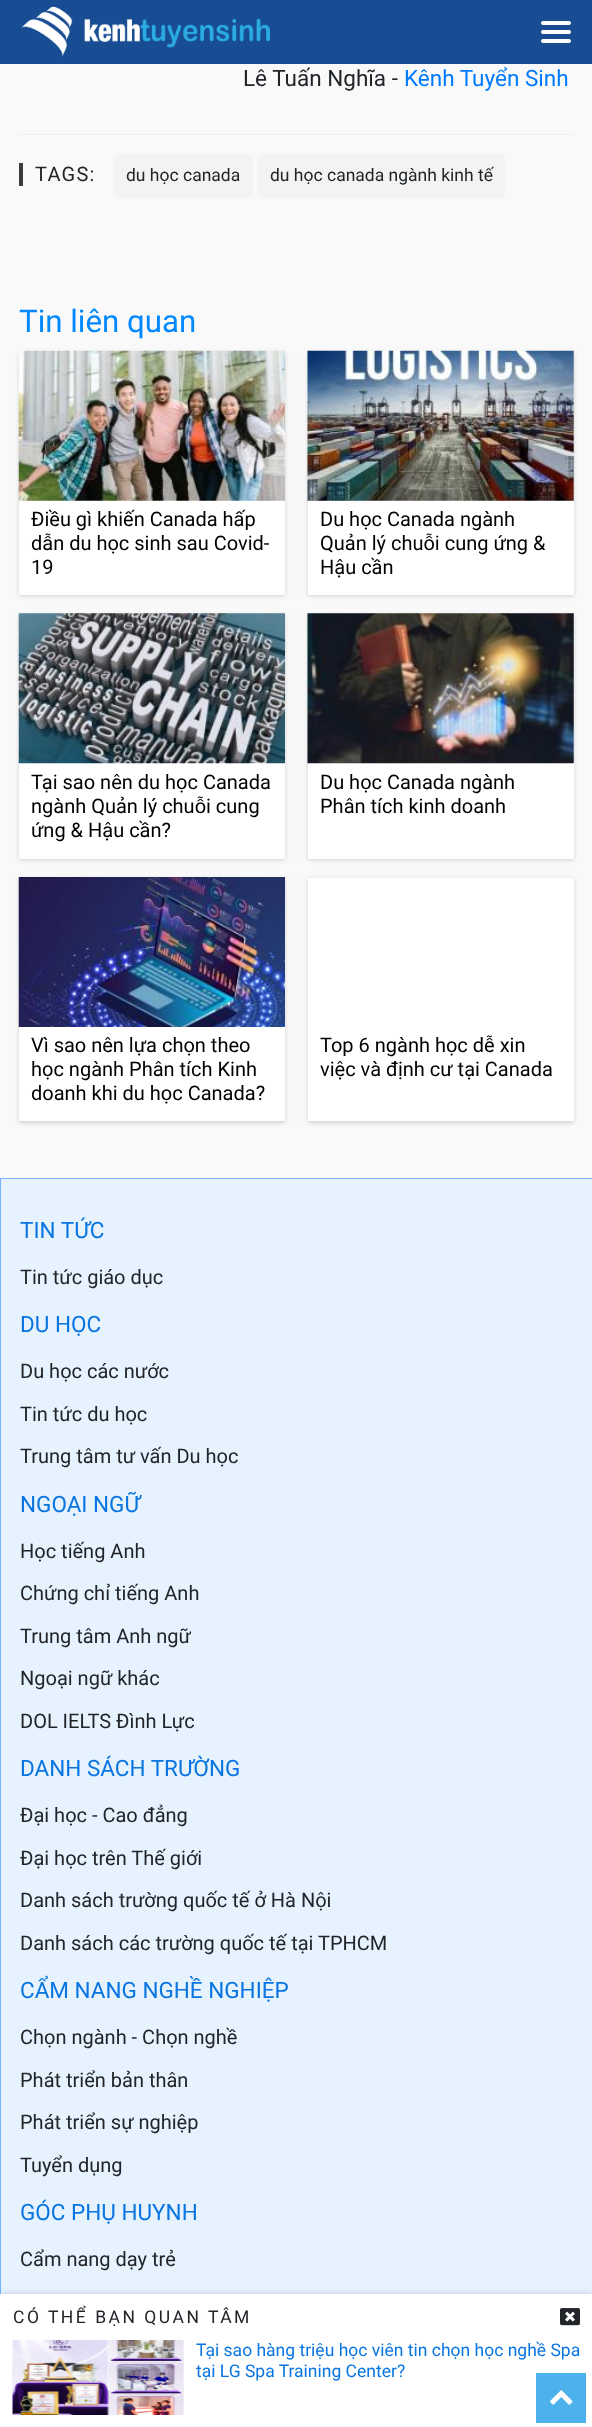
<!DOCTYPE html>
<meta charset="utf-8">
<style>body { margin: 0 } canvas { display: block }</style>
<canvas id="canvas" width="592" height="2427"></canvas>
<script type="module">
  const canvas = document.getElementById("canvas");
  const ctx = canvas.getContext("2d");
  ctx.miterLimit = 4;
  ctx.fontKerning = "normal";
  async function loadImage(src) {
    const img = new Image();
    img.src = src;
    await img.decode();
    return img;
  }

  ctx.fillStyle = "#f9f9f9";
  ctx.fillRect(0, 0, 592, 2427);
  ctx.fillStyle = "#194d93";
  ctx.fillRect(0, 0, 592, 64);
  ctx.drawImage(await loadImage("img1.png"), 21, 6, 249, 51);
  ctx.fillStyle = "#ffffff";
  ctx.beginPath();
  ctx.roundRect(541, 21, 30, 4, 2);
  ctx.fill();
  ctx.beginPath();
  ctx.roundRect(541, 30, 30, 4, 2);
  ctx.fill();
  ctx.beginPath();
  ctx.roundRect(541, 39, 30, 4, 2);
  ctx.fill();
  ctx.font = "22.5px Roboto";
  ctx.fillStyle = "#212529";
  ctx.fillText("Lê Tuấn Nghĩa -", 243, 86);
  ctx.fillStyle = "#007bff";
  ctx.fillText("Kênh Tuyển Sinh", 404, 86);
  ctx.fillStyle = "#efefef";
  ctx.fillRect(19, 134, 555, 1);
  ctx.letterSpacing = "1.25px";
  ctx.font = "20px Roboto";
  ctx.fillStyle = "#212529";
  ctx.fillText("TAGS:", 35, 181);
  ctx.fillStyle = "#3b3b3b";
  ctx.fillRect(19, 163, 4, 23);
  ctx.fillStyle = "#f3f3f3";
  ctx.beginPath();
  ctx.roundRect(114, 154, 139, 44, 6);
  ctx.fill();
  ctx.letterSpacing = "0px";
  ctx.font = "17.5px Roboto";
  ctx.fillStyle = "#212529";
  ctx.fillText("du học canada", 126, 181);
  ctx.fillStyle = "#f3f3f3";
  ctx.beginPath();
  ctx.roundRect(258, 154, 247, 44, 6);
  ctx.fill();
  ctx.fillStyle = "#212529";
  ctx.fillText("du học canada ngành kinh tế", 270, 181);
  ctx.font = "31.25px Roboto";
  ctx.fillStyle = "#0088ff";
  ctx.fillText("Tin liên quan", 19, 332);
  ctx.fillStyle = "rgba(0, 0, 0, 0.16)";
  ctx.filter = "blur(2px)";
  ctx.beginPath();
  ctx.rect(19, 353, 266, 243);
  ctx.fill();
  ctx.filter = "none";
  ctx.fillStyle = "#ffffff";
  ctx.fillRect(19, 500, 266, 95);
  ctx.drawImage(await loadImage("img2.png"), 18, 350, 267, 151);
  ctx.font = "20px Roboto";
  ctx.fillStyle = "#000000";
  ctx.fillText("Điều gì khiến Canada hấp", 31, 526);
  ctx.fillText("dẫn du học sinh sau Covid-", 31, 550);
  ctx.fillText("19", 31, 574);
  ctx.fillStyle = "rgba(0, 0, 0, 0.16)";
  ctx.filter = "blur(2px)";
  ctx.beginPath();
  ctx.rect(308, 353, 266, 243);
  ctx.fill();
  ctx.filter = "none";
  ctx.fillStyle = "#ffffff";
  ctx.fillRect(308, 351, 266, 244);
  ctx.drawImage(await loadImage("img3.png"), 307, 350, 267, 151);
  ctx.fillStyle = "#000000";
  ctx.fillText("Du học Canada ngành", 320, 526);
  ctx.fillText("Quản lý chuỗi cung ứng &", 320, 550);
  ctx.fillText("Hậu cần", 320, 574);
  ctx.fillStyle = "rgba(0, 0, 0, 0.16)";
  ctx.filter = "blur(2px)";
  ctx.beginPath();
  ctx.rect(19, 615, 266, 245);
  ctx.fill();
  ctx.filter = "none";
  ctx.fillStyle = "#ffffff";
  ctx.fillRect(19, 763, 266, 96);
  ctx.drawImage(await loadImage("img4.png"), 18, 613, 267, 151);
  ctx.fillStyle = "#000000";
  ctx.fillText("Tại sao nên du học Canada", 31, 789);
  ctx.fillText("ngành Quản lý chuỗi cung", 31, 813);
  ctx.fillText("ứng & Hậu cần?", 31, 837);
  ctx.fillStyle = "rgba(0, 0, 0, 0.16)";
  ctx.filter = "blur(2px)";
  ctx.beginPath();
  ctx.rect(308, 615, 266, 245);
  ctx.fill();
  ctx.filter = "none";
  ctx.fillStyle = "#ffffff";
  ctx.fillRect(308, 614, 266, 245);
  ctx.drawImage(await loadImage("img5.png"), 307, 613, 267, 151);
  ctx.fillStyle = "#000000";
  ctx.fillText("Du học Canada ngành", 320, 789);
  ctx.fillText("Phân tích kinh doanh", 320, 813);
  ctx.fillStyle = "rgba(0, 0, 0, 0.16)";
  ctx.filter = "blur(2px)";
  ctx.beginPath();
  ctx.rect(19, 879, 266, 244);
  ctx.fill();
  ctx.filter = "none";
  ctx.fillStyle = "#ffffff";
  ctx.fillRect(19, 1027, 266, 94);
  ctx.drawImage(await loadImage("img6.png"), 18, 877, 267, 150);
  ctx.fillStyle = "#000000";
  ctx.fillText("Vì sao nên lựa chọn theo", 31, 1052);
  ctx.fillText("học ngành Phân tích Kinh", 31, 1076);
  ctx.fillText("doanh khi du học Canada?", 31, 1100);
  ctx.fillStyle = "rgba(0, 0, 0, 0.16)";
  ctx.filter = "blur(2px)";
  ctx.beginPath();
  ctx.rect(308, 879, 266, 244);
  ctx.fill();
  ctx.filter = "none";
  ctx.fillStyle = "#ffffff";
  ctx.fillRect(308, 878, 266, 243);
  ctx.fillStyle = "#000000";
  ctx.fillText("Top 6 ngành học dễ xin", 320, 1052);
  ctx.fillText("việc và định cư tại Canada", 320, 1076);
  ctx.fillStyle = "#e7f2ff";
  ctx.fillRect(1, 1179, 591, 1115);
  ctx.strokeStyle = "#73b3ff";
  ctx.strokeRect(0.5, 1178.5, 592, 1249);
  ctx.font = "22.5px Roboto";
  ctx.fillStyle = "#0975e1";
  ctx.fillText("TIN TỨC", 20, 1238);
  ctx.font = "20px Roboto";
  ctx.fillStyle = "#212529";
  ctx.fillText("Tin tức giáo dục", 20, 1284);
  ctx.font = "22.5px Roboto";
  ctx.fillStyle = "#0975e1";
  ctx.fillText("DU HỌC", 20, 1332);
  ctx.font = "20px Roboto";
  ctx.fillStyle = "#212529";
  ctx.fillText("Du học các nước", 20, 1378);
  ctx.fillText("Tin tức du học", 20, 1421);
  ctx.fillText("Trung tâm tư vấn Du học", 20, 1463);
  ctx.font = "22.5px Roboto";
  ctx.fillStyle = "#0975e1";
  ctx.fillText("NGOẠI NGỮ", 20, 1512);
  ctx.font = "20px Roboto";
  ctx.fillStyle = "#212529";
  ctx.fillText("Học tiếng Anh", 20, 1558);
  ctx.fillText("Chứng chỉ tiếng Anh", 20, 1600);
  ctx.fillText("Trung tâm Anh ngữ", 20, 1643);
  ctx.fillText("Ngoại ngữ khác", 20, 1685);
  ctx.fillText("DOL IELTS Đình Lực", 20, 1728);
  ctx.font = "22.5px Roboto";
  ctx.fillStyle = "#0975e1";
  ctx.fillText("DANH SÁCH TRƯỜNG", 20, 1776);
  ctx.font = "20px Roboto";
  ctx.fillStyle = "#212529";
  ctx.fillText("Đại học - Cao đẳng", 20, 1822);
  ctx.fillText("Đại học trên Thế giới", 20, 1865);
  ctx.fillText("Danh sách trường quốc tế ở Hà Nội", 20, 1907);
  ctx.fillText("Danh sách các trường quốc tế tại TPHCM", 20, 1950);
  ctx.font = "22.5px Roboto";
  ctx.fillStyle = "#0975e1";
  ctx.fillText("CẨM NANG NGHỀ NGHIỆP", 20, 1998);
  ctx.font = "20px Roboto";
  ctx.fillStyle = "#212529";
  ctx.fillText("Chọn ngành - Chọn nghề", 20, 2044);
  ctx.fillText("Phát triển bản thân", 20, 2087);
  ctx.fillText("Phát triển sự nghiệp", 20, 2129);
  ctx.fillText("Tuyển dụng", 20, 2172);
  ctx.font = "22.5px Roboto";
  ctx.fillStyle = "#0975e1";
  ctx.fillText("GÓC PHỤ HUYNH", 20, 2220);
  ctx.font = "20px Roboto";
  ctx.fillStyle = "#212529";
  ctx.fillText("Cẩm nang dạy trẻ", 20, 2266);
  ctx.fillStyle = "rgba(0, 0, 0, 0.16)";
  ctx.filter = "blur(3px)";
  ctx.beginPath();
  ctx.rect(0, 2294, 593, 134);
  ctx.fill();
  ctx.filter = "none";
  ctx.fillStyle = "#ffffff";
  ctx.fillRect(0, 2294, 592, 133);
  ctx.letterSpacing = "2.5px";
  ctx.font = "17.5px Roboto";
  ctx.fillStyle = "#212529";
  ctx.fillText("CÓ THỂ BẠN QUAN TÂM", 13, 2323);
  ctx.drawImage(await loadImage("img7.png"), 560, 2308, 20, 18);
  ctx.drawImage(await loadImage("img8.png"), 12, 2340, 172, 75);
  ctx.letterSpacing = "0px";
  ctx.fillStyle = "#0975e1";
  ctx.fillText("Tại sao hàng triệu học viên tin chọn học nghề Spa", 196, 2356);
  ctx.fillText("tại LG Spa Training Center?", 196, 2377);
  ctx.fillStyle = "#4db2ec";
  ctx.fillRect(536, 2373, 50, 50);
  ctx.drawImage(await loadImage("img9.png"), 550, 2390, 23, 15);
</script>
